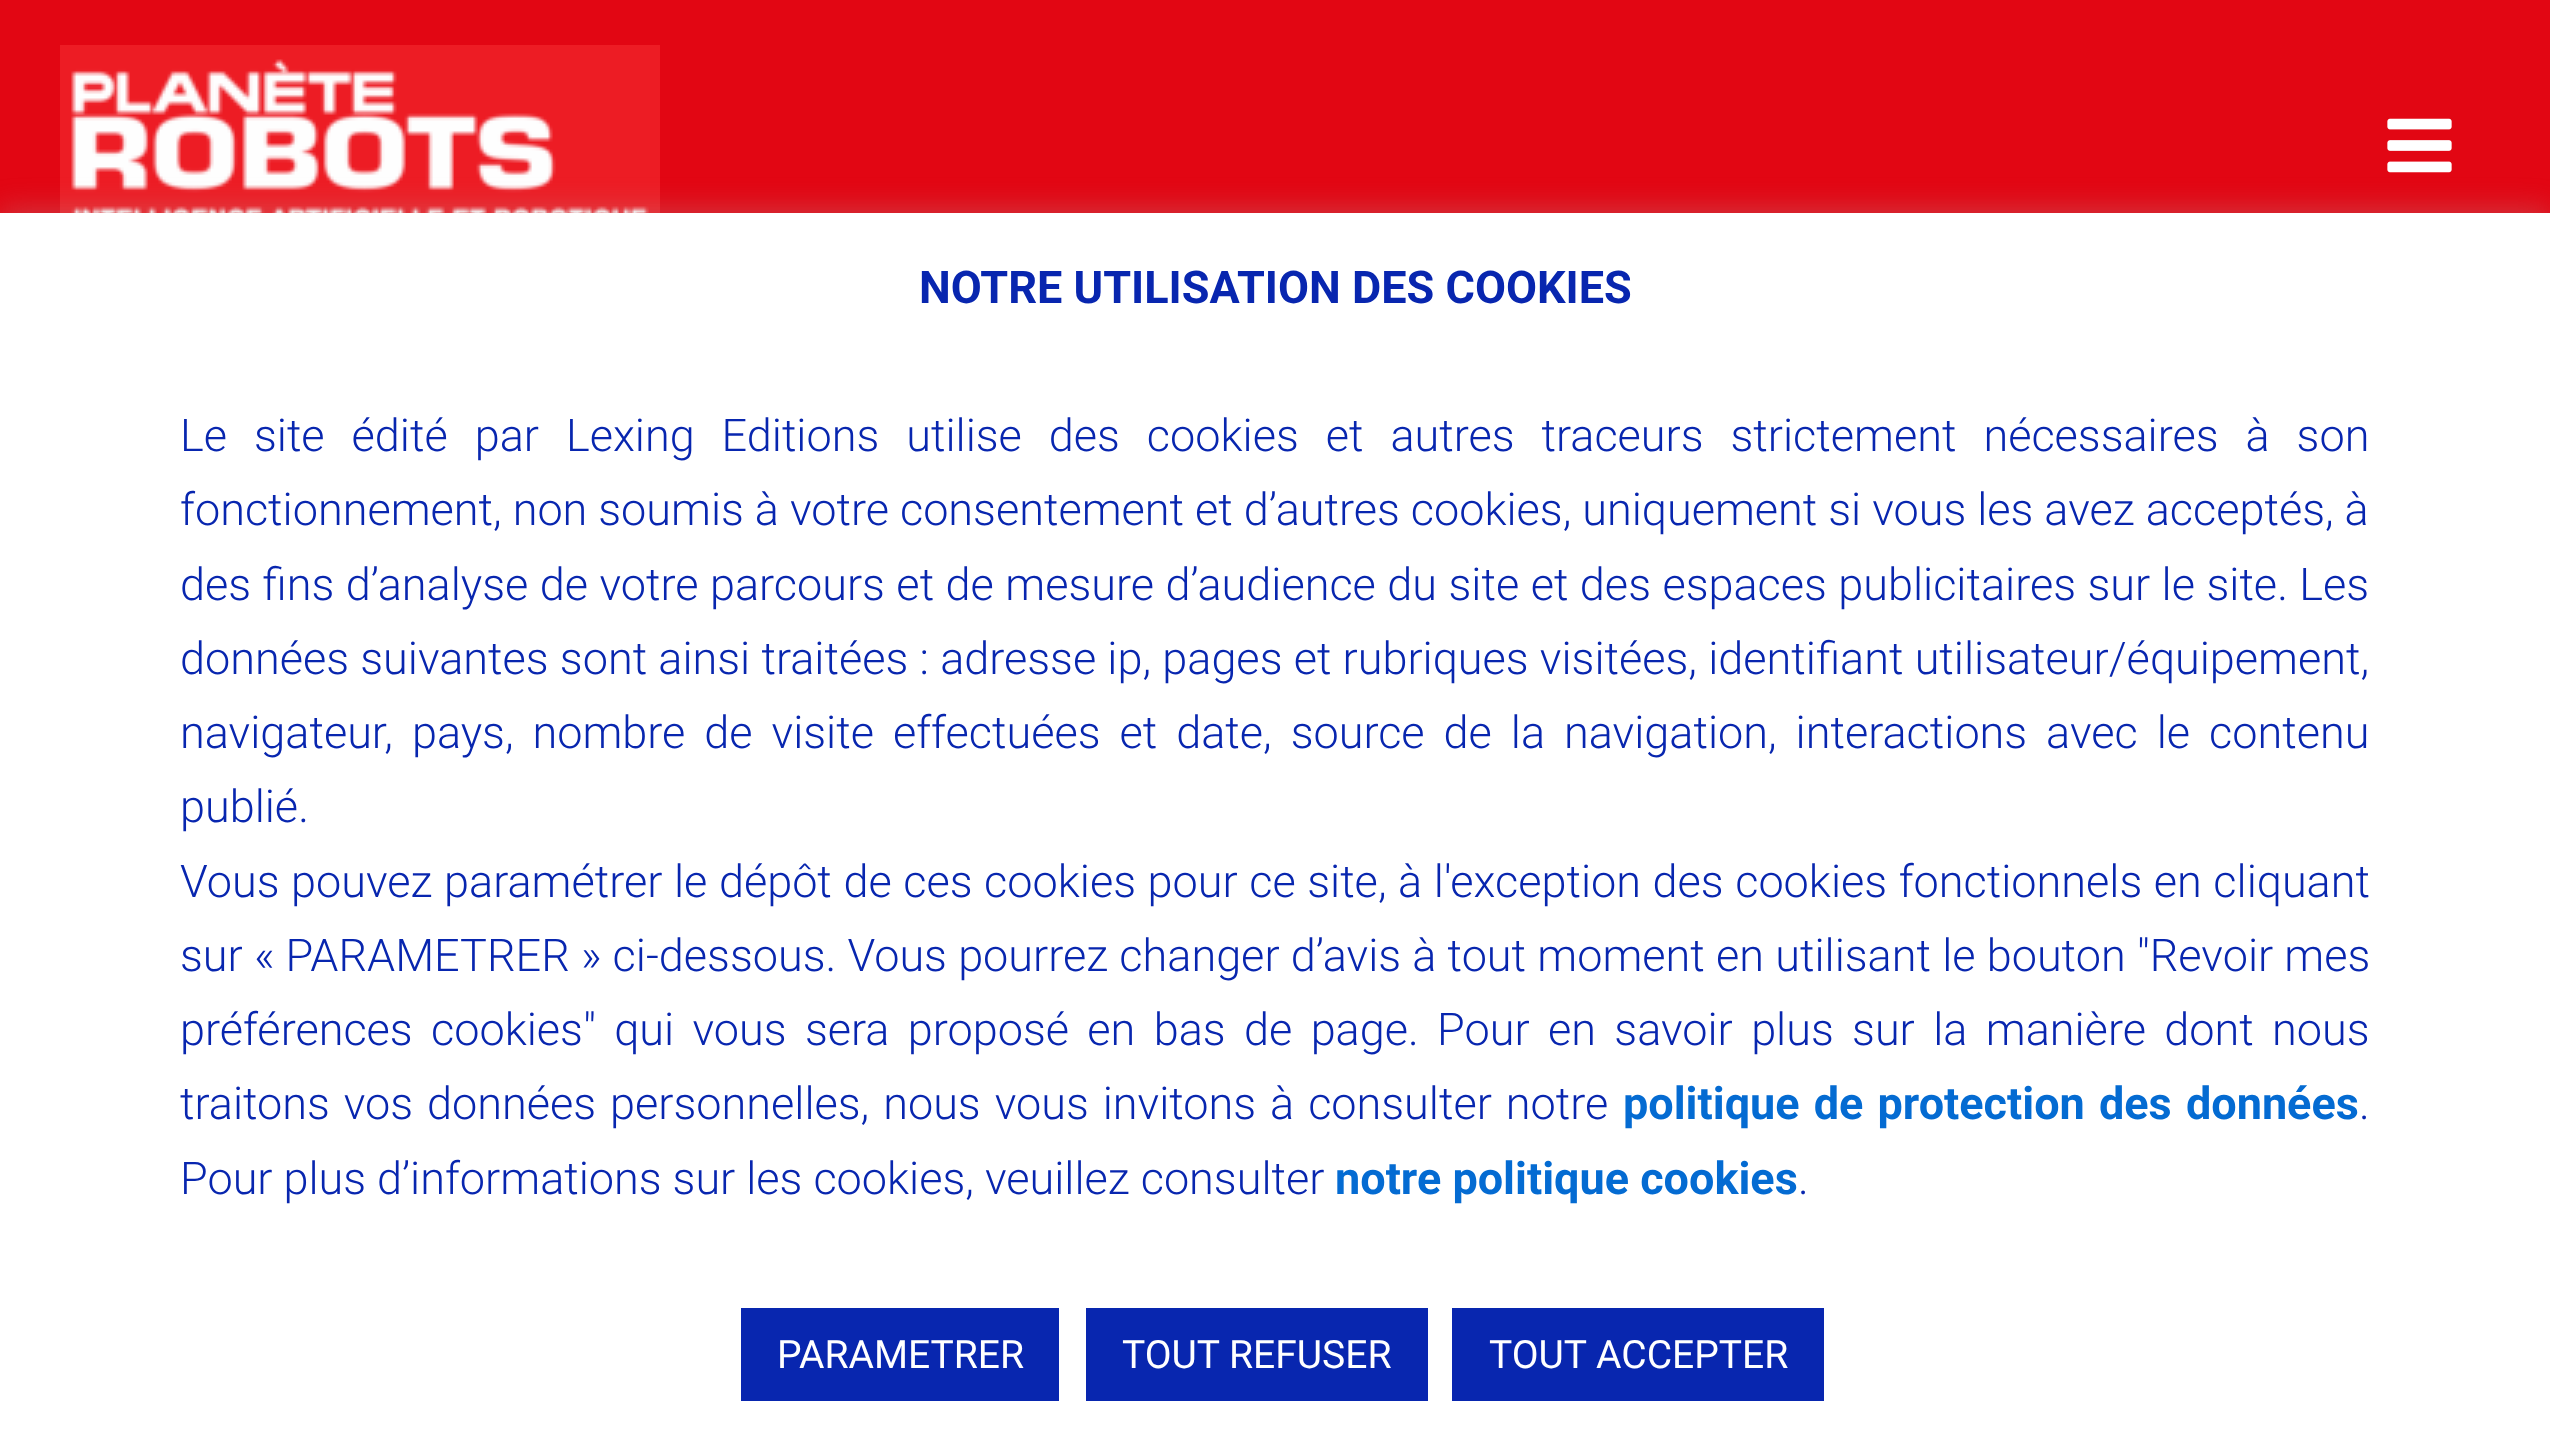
<!DOCTYPE html>
<meta charset="utf-8">
<style>body { margin: 0 } canvas { display: block }</style>
<canvas id="canvas" width="2550" height="1435"></canvas>
<script type="module">
  const canvas = document.getElementById("canvas");
  const ctx = canvas.getContext("2d");
  ctx.miterLimit = 4;
  ctx.fontKerning = "normal";
  async function loadImage(src) {
    const img = new Image();
    img.src = src;
    await img.decode();
    return img;
  }

  ctx.fillStyle = "#e20613";
  ctx.fillRect(0, 0, 2550, 1435);
  ctx.drawImage(await loadImage("img1.png"), 60, 45, 600, 168);
  ctx.drawImage(await loadImage("img2.png"), 2387, 118, 65, 55);
  ctx.fillStyle = "rgba(172, 171, 171, 0.3)";
  ctx.filter = "blur(15px)";
  ctx.beginPath();
  ctx.rect(0, 210, 2550, 1224);
  ctx.fill();
  ctx.filter = "none";
  ctx.fillStyle = "#ffffff";
  ctx.fillRect(0, 213, 2550, 1222);
  ctx.font = "bold 45px Roboto";
  ctx.fillStyle = "#0826af";
  ctx.fillText("NOTRE UTILISATION DES COOKIES", 919, 303);
  ctx.wordSpacing = "16px";
  ctx.font = "300 45px Roboto";
  ctx.fillText("Le site édité par Lexing Editions utilise des cookies et autres traceurs strictement nécessaires à son", 180, 451);
  ctx.wordSpacing = "0px";
  ctx.fillText("fonctionnement, non soumis à votre consentement et d’autres cookies, uniquement si vous les avez acceptés, à", 180, 525);
  ctx.wordSpacing = "0.5px";
  ctx.fillText("des fins d’analyse de votre parcours et de mesure d’audience du site et des espaces publicitaires sur le site. Les", 180, 600);
  ctx.wordSpacing = "0.25px";
  ctx.fillText("données suivantes sont ainsi traitées : adresse ip, pages et rubriques visitées, identifiant utilisateur/équipement,", 180, 674);
  ctx.wordSpacing = "8px";
  ctx.fillText("navigateur, pays, nombre de visite effectuées et date, source de la navigation, interactions avec le contenu", 180, 748);
  ctx.wordSpacing = "0px";
  ctx.fillText("publié.", 180, 822);
  ctx.wordSpacing = "0.6px";
  ctx.fillText("Vous pouvez paramétrer le dépôt de ces cookies pour ce site, à l'exception des cookies fonctionnels en cliquant", 180, 897);
  ctx.wordSpacing = "0.25px";
  ctx.fillText("sur « PARAMETRER » ci-dessous. Vous pourrez changer d’avis à tout moment en utilisant le bouton \"Revoir mes", 180, 971);
  ctx.wordSpacing = "7.4px";
  ctx.fillText("préférences cookies\" qui vous sera proposé en bas de page. Pour en savoir plus sur la manière dont nous", 180, 1045);
  ctx.wordSpacing = "3px";
  ctx.fillText("traitons vos données personnelles, nous vous invitons à consulter notre", 180, 1119);
  ctx.font = "bold 45px Roboto";
  ctx.fillStyle = "#046bd2";
  ctx.fillText("politique de protection des données", 1623, 1119);
  ctx.wordSpacing = "0px";
  ctx.font = "300 45px Roboto";
  ctx.fillStyle = "#0826af";
  ctx.fillText(".", 2359, 1119);
  ctx.fillText("Pour plus d’informations sur les cookies, veuillez consulter", 180, 1194);
  ctx.font = "bold 45px Roboto";
  ctx.fillStyle = "#046bd2";
  ctx.fillText("notre politique cookies", 1335, 1194);
  ctx.font = "300 45px Roboto";
  ctx.fillStyle = "#0826af";
  ctx.fillText(".", 1798, 1194);
  ctx.fillRect(741, 1308, 318, 93);
  ctx.font = "39px Roboto";
  ctx.fillStyle = "#ffffff";
  ctx.fillText("PARAMETRER", 777, 1368);
  ctx.fillStyle = "#0826af";
  ctx.fillRect(1086, 1308, 342, 93);
  ctx.fillStyle = "#ffffff";
  ctx.fillText("TOUT REFUSER", 1122, 1368);
  ctx.fillStyle = "#0826af";
  ctx.fillRect(1452, 1308, 372, 93);
  ctx.fillStyle = "#ffffff";
  ctx.fillText("TOUT ACCEPTER", 1489, 1368);
</script>
